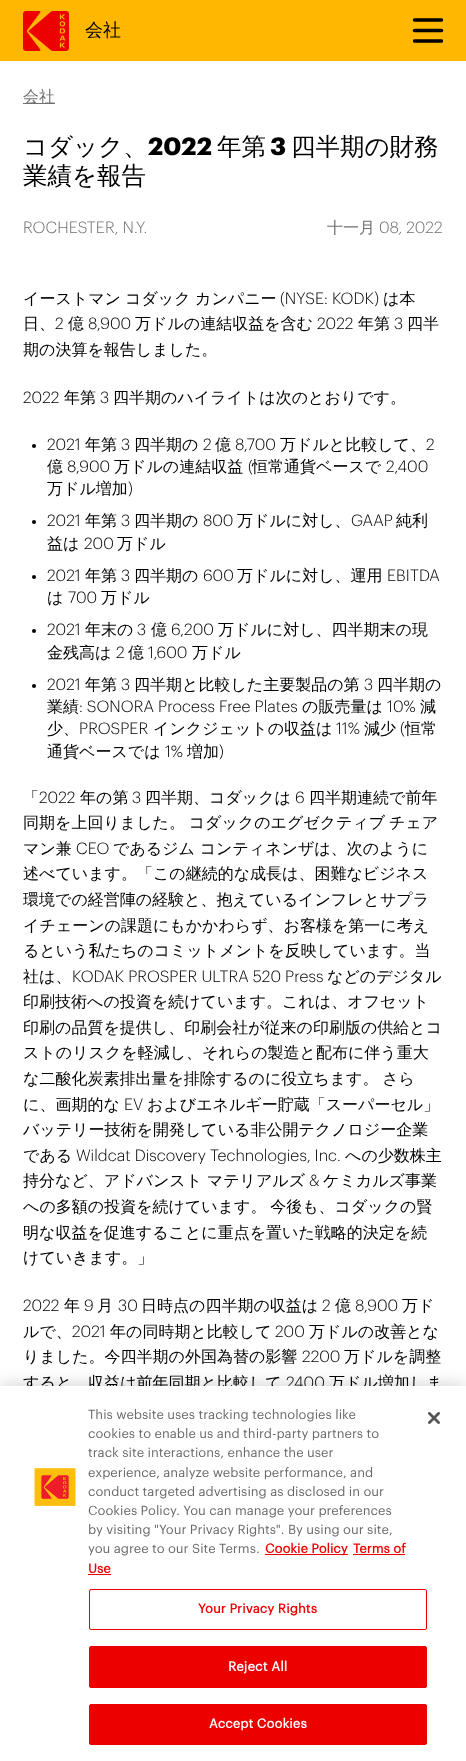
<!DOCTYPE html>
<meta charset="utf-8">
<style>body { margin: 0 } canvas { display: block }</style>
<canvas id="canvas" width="466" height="1761"></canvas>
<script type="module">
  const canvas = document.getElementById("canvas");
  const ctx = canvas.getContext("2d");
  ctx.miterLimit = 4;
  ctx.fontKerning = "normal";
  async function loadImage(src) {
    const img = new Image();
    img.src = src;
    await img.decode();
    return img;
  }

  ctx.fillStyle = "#ffffff";
  ctx.fillRect(0, 0, 466, 1761);
  ctx.fillStyle = "#ffb700";
  ctx.fillRect(0, 0, 466, 61);
  ctx.drawImage(await loadImage("img1.png"), 23, 11, 46, 40);
  ctx.font = "500 18px WenQuanYi Zen Hei";
  ctx.fillStyle = "#000000";
  ctx.fillText("会社", 85, 36);
  ctx.save();
  ctx.beginPath();
  ctx.rect(413, 18, 30, 25);
  ctx.clip();
  ctx.beginPath();
  ctx.moveTo(441.5, 20);
  ctx.lineTo(414.5, 20);
  ctx.strokeStyle = "#000000";
  ctx.lineWidth = 3.5;
  ctx.lineCap = "round";
  ctx.stroke();
  ctx.restore();
  ctx.beginPath();
  ctx.moveTo(441.5, 30.5);
  ctx.lineTo(414.5, 30.5);
  ctx.strokeStyle = "#000000";
  ctx.lineWidth = 3.5;
  ctx.lineCap = "round";
  ctx.stroke();
  ctx.save();
  ctx.beginPath();
  ctx.rect(413, 18, 30, 25);
  ctx.clip();
  ctx.beginPath();
  ctx.moveTo(441.5, 41);
  ctx.lineTo(414.5, 41);
  ctx.stroke();
  ctx.restore();
  ctx.fillStyle = "#707070";
  ctx.fillRect(23, 103, 32, 1);
  ctx.font = "500 16px WenQuanYi Zen Hei";
  ctx.fillText("会社", 23, 102);
  ctx.font = "500 24.5px WenQuanYi Zen Hei";
  ctx.fillStyle = "#000000";
  ctx.fillText("コダック、", 23, 155);
  ctx.font = "bold 24.5px Graphik";
  ctx.fillText("2022", 148, 155);
  ctx.font = "500 24.5px WenQuanYi Zen Hei";
  ctx.fillText("年第", 217, 155);
  ctx.font = "bold 24.5px Graphik";
  ctx.fillText("3", 270, 155);
  ctx.font = "500 24.5px WenQuanYi Zen Hei";
  ctx.fillText("四半期の財務", 291, 155);
  ctx.fillText("業績を報告", 23, 184);
  ctx.font = "300 16px Graphik";
  ctx.fillStyle = "#707070";
  ctx.fillText("ROCHESTER, N.Y.", 23, 233);
  ctx.font = "500 16px WenQuanYi Zen Hei";
  ctx.fillText("十一月", 327, 233);
  ctx.font = "300 16px Graphik";
  ctx.fillText("08, 2022", 379, 233);
  ctx.font = "500 16px WenQuanYi Zen Hei";
  ctx.fillStyle = "#000000";
  ctx.fillText("イーストマン", 23, 304);
  ctx.fillText("コダック", 125, 304);
  ctx.fillText("カンパニー", 195, 304);
  ctx.font = "300 16px Graphik";
  ctx.fillText("(NYSE: KODK)", 280, 304);
  ctx.font = "500 16px WenQuanYi Zen Hei";
  ctx.fillText("は本", 383, 304);
  ctx.fillText("日、", 23, 329);
  ctx.font = "300 16px Graphik";
  ctx.fillText("2", 55, 329);
  ctx.font = "500 16px WenQuanYi Zen Hei";
  ctx.fillText("億", 68, 329);
  ctx.font = "300 16px Graphik";
  ctx.fillText("8,900", 88, 329);
  ctx.font = "500 16px WenQuanYi Zen Hei";
  ctx.fillText("万ドルの連結収益を含む", 135, 329);
  ctx.font = "300 16px Graphik";
  ctx.fillText("2022", 317, 329);
  ctx.font = "500 16px WenQuanYi Zen Hei";
  ctx.fillText("年第", 358, 329);
  ctx.font = "300 16px Graphik";
  ctx.fillText("3", 394, 329);
  ctx.font = "500 16px WenQuanYi Zen Hei";
  ctx.fillText("四半", 407, 329);
  ctx.fillText("期の決算を報告しました。", 23, 355);
  ctx.font = "300 16px Graphik";
  ctx.fillText("2022", 23, 403);
  ctx.font = "500 16px WenQuanYi Zen Hei";
  ctx.fillText("年第", 64, 403);
  ctx.font = "300 16px Graphik";
  ctx.fillText("3", 100, 403);
  ctx.font = "500 16px WenQuanYi Zen Hei";
  ctx.fillText("四半期のハイライトは次のとおりです。", 113, 403);
  ctx.beginPath();
  ctx.arc(34, 446, 2, 0, Math.PI * 2);
  ctx.fill();
  ctx.font = "300 16px Graphik";
  ctx.fillText("2021", 47, 450);
  ctx.font = "500 16px WenQuanYi Zen Hei";
  ctx.fillText("年第", 85, 450);
  ctx.font = "300 16px Graphik";
  ctx.fillText("3", 121, 450);
  ctx.font = "500 16px WenQuanYi Zen Hei";
  ctx.fillText("四半期の", 134, 450);
  ctx.font = "300 16px Graphik";
  ctx.fillText("2", 203, 450);
  ctx.font = "500 16px WenQuanYi Zen Hei";
  ctx.fillText("億", 215, 450);
  ctx.font = "300 16px Graphik";
  ctx.fillText("8,700", 235, 450);
  ctx.font = "500 16px WenQuanYi Zen Hei";
  ctx.fillText("万ドルと比較して、", 280, 450);
  ctx.font = "300 16px Graphik";
  ctx.fillText("2", 426, 450);
  ctx.font = "500 16px WenQuanYi Zen Hei";
  ctx.fillText("億", 47, 472);
  ctx.font = "300 16px Graphik";
  ctx.fillText("8,900", 67, 472);
  ctx.font = "500 16px WenQuanYi Zen Hei";
  ctx.fillText("万ドルの連結収益", 114, 472);
  ctx.font = "300 16px Graphik";
  ctx.fillText("(", 248, 472);
  ctx.font = "500 16px WenQuanYi Zen Hei";
  ctx.fillText("恒常通貨ベースで", 252, 472);
  ctx.font = "300 16px Graphik";
  ctx.fillText("2,400", 386, 472);
  ctx.font = "500 16px WenQuanYi Zen Hei";
  ctx.fillText("万ドル増加", 47, 494);
  ctx.font = "300 16px Graphik";
  ctx.fillText(")", 128, 494);
  ctx.beginPath();
  ctx.arc(34, 522, 2, 0, Math.PI * 2);
  ctx.fill();
  ctx.fillText("2021", 47, 526);
  ctx.font = "500 16px WenQuanYi Zen Hei";
  ctx.fillText("年第", 85, 526);
  ctx.font = "300 16px Graphik";
  ctx.fillText("3", 121, 526);
  ctx.font = "500 16px WenQuanYi Zen Hei";
  ctx.fillText("四半期の", 134, 526);
  ctx.font = "300 16px Graphik";
  ctx.fillText("800", 203, 526);
  ctx.font = "500 16px WenQuanYi Zen Hei";
  ctx.fillText("万ドルに対し、", 237, 526);
  ctx.font = "300 16px Graphik";
  ctx.fillText("GAAP", 351, 526);
  ctx.font = "500 16px WenQuanYi Zen Hei";
  ctx.fillText("純利", 396, 526);
  ctx.fillText("益は", 47, 549);
  ctx.font = "300 16px Graphik";
  ctx.fillText("200", 84, 549);
  ctx.font = "500 16px WenQuanYi Zen Hei";
  ctx.fillText("万ドル", 117, 549);
  ctx.beginPath();
  ctx.arc(34, 577, 2, 0, Math.PI * 2);
  ctx.fill();
  ctx.font = "300 16px Graphik";
  ctx.fillText("2021", 47, 581);
  ctx.font = "500 16px WenQuanYi Zen Hei";
  ctx.fillText("年第", 85, 581);
  ctx.font = "300 16px Graphik";
  ctx.fillText("3", 121, 581);
  ctx.font = "500 16px WenQuanYi Zen Hei";
  ctx.fillText("四半期の", 134, 581);
  ctx.font = "300 16px Graphik";
  ctx.fillText("600", 203, 581);
  ctx.font = "500 16px WenQuanYi Zen Hei";
  ctx.fillText("万ドルに対し、運用", 237, 581);
  ctx.font = "300 16px Graphik";
  ctx.fillText("EBITDA", 387, 581);
  ctx.font = "500 16px WenQuanYi Zen Hei";
  ctx.fillText("は", 47, 603);
  ctx.font = "300 16px Graphik";
  ctx.fillText("700", 68, 603);
  ctx.font = "500 16px WenQuanYi Zen Hei";
  ctx.fillText("万ドル", 101, 603);
  ctx.beginPath();
  ctx.arc(34, 631, 2, 0, Math.PI * 2);
  ctx.fill();
  ctx.font = "300 16px Graphik";
  ctx.fillText("2021", 47, 635);
  ctx.font = "500 16px WenQuanYi Zen Hei";
  ctx.fillText("年末の", 85, 635);
  ctx.font = "300 16px Graphik";
  ctx.fillText("3", 137, 635);
  ctx.font = "500 16px WenQuanYi Zen Hei";
  ctx.fillText("億", 151, 635);
  ctx.font = "300 16px Graphik";
  ctx.fillText("6,200", 171, 635);
  ctx.font = "500 16px WenQuanYi Zen Hei";
  ctx.fillText("万ドルに対し、四半期末の現", 218, 635);
  ctx.fillText("金残高は", 47, 658);
  ctx.font = "300 16px Graphik";
  ctx.fillText("2", 116, 658);
  ctx.font = "500 16px WenQuanYi Zen Hei";
  ctx.fillText("億", 128, 658);
  ctx.font = "300 16px Graphik";
  ctx.fillText("1,600", 148, 658);
  ctx.font = "500 16px WenQuanYi Zen Hei";
  ctx.fillText("万ドル", 192, 658);
  ctx.beginPath();
  ctx.arc(34, 686, 2, 0, Math.PI * 2);
  ctx.fill();
  ctx.font = "300 16px Graphik";
  ctx.fillText("2021", 47, 690);
  ctx.font = "500 16px WenQuanYi Zen Hei";
  ctx.fillText("年第", 85, 690);
  ctx.font = "300 16px Graphik";
  ctx.fillText("3", 121, 690);
  ctx.font = "500 16px WenQuanYi Zen Hei";
  ctx.fillText("四半期と比較した主要製品の第", 134, 690);
  ctx.font = "300 16px Graphik";
  ctx.fillText("3", 364, 690);
  ctx.font = "500 16px WenQuanYi Zen Hei";
  ctx.fillText("四半期の", 377, 690);
  ctx.fillText("業績", 47, 712);
  ctx.font = "300 16px Graphik";
  ctx.fillText(": SONORA Process Free Plates", 79, 712);
  ctx.font = "500 16px WenQuanYi Zen Hei";
  ctx.fillText("の販売量は", 302, 712);
  ctx.font = "300 16px Graphik";
  ctx.fillText("10%", 387, 712);
  ctx.font = "500 16px WenQuanYi Zen Hei";
  ctx.fillText("減", 420, 712);
  ctx.fillText("少、", 47, 734);
  ctx.font = "300 16px Graphik";
  ctx.fillText("PROSPER", 79, 734);
  ctx.font = "500 16px WenQuanYi Zen Hei";
  ctx.fillText("インクジェットの収益は", 153, 734);
  ctx.font = "300 16px Graphik";
  ctx.fillText("11%", 336, 734);
  ctx.font = "500 16px WenQuanYi Zen Hei";
  ctx.fillText("減少", 364, 734);
  ctx.font = "300 16px Graphik";
  ctx.fillText("(", 400, 734);
  ctx.font = "500 16px WenQuanYi Zen Hei";
  ctx.fillText("恒常", 405, 734);
  ctx.fillText("通貨ベースでは", 47, 757);
  ctx.font = "300 16px Graphik";
  ctx.fillText("1%", 165, 757);
  ctx.font = "500 16px WenQuanYi Zen Hei";
  ctx.fillText("増加", 187, 757);
  ctx.font = "300 16px Graphik";
  ctx.fillText(")", 219, 757);
  ctx.font = "500 16px WenQuanYi Zen Hei";
  ctx.fillText("「", 23, 803);
  ctx.font = "300 16px Graphik";
  ctx.fillText("2022", 39, 803);
  ctx.font = "500 16px WenQuanYi Zen Hei";
  ctx.fillText("年の第", 80, 803);
  ctx.font = "300 16px Graphik";
  ctx.fillText("3", 132, 803);
  ctx.font = "500 16px WenQuanYi Zen Hei";
  ctx.fillText("四半期、コダックは", 145, 803);
  ctx.font = "300 16px Graphik";
  ctx.fillText("6", 295, 803);
  ctx.font = "500 16px WenQuanYi Zen Hei";
  ctx.fillText("四半期連続で前年", 309, 803);
  ctx.wordSpacing = "-1px";
  ctx.fillText("同期を上回りました。 コダックのエグゼクティブ チェア", 23, 828);
  ctx.wordSpacing = "0px";
  ctx.fillText("マン兼", 23, 854);
  ctx.font = "300 16px Graphik";
  ctx.fillText("CEO", 76, 854);
  ctx.font = "500 16px WenQuanYi Zen Hei";
  ctx.fillText("であるジム コンティネンザは、次のように", 113, 854);
  ctx.fillText("述べています。「この継続的な成長は、困難なビジネス", 23, 879);
  ctx.fillText("環境での経営陣の経験と、抱えているインフレとサプラ", 23, 905);
  ctx.fillText("イチェーンの課題にもかかわらず、お客様を第一に考え", 23, 931);
  ctx.fillText("るという私たちのコミットメントを反映しています。当", 23, 956);
  ctx.fillText("社は、", 23, 982);
  ctx.font = "300 16px Graphik";
  ctx.fillText("KODAK PROSPER ULTRA 520 Press", 72, 982);
  ctx.font = "500 16px WenQuanYi Zen Hei";
  ctx.fillText("などのデジタル", 327, 982);
  ctx.fillText("印刷技術への投資を続けています。これは、オフセット", 23, 1007);
  ctx.fillText("印刷の品質を提供し、印刷会社が従来の印刷版の供給とコ", 23, 1033);
  ctx.fillText("ストのリスクを軽減し、それらの製造と配布に伴う重大", 23, 1058);
  ctx.wordSpacing = "-1px";
  ctx.fillText("な二酸化炭素排出量を排除するのに役立ちます。 さら", 23, 1084);
  ctx.wordSpacing = "0px";
  ctx.fillText("に、画期的な", 23, 1110);
  ctx.font = "300 16px Graphik";
  ctx.fillText("EV", 124, 1110);
  ctx.font = "500 16px WenQuanYi Zen Hei";
  ctx.fillText("およびエネルギー貯蔵「スーパーセル」", 147, 1110);
  ctx.fillText("バッテリー技術を開発している非公開テクノロジー企業", 23, 1135);
  ctx.fillText("である", 23, 1161);
  ctx.font = "300 16px Graphik";
  ctx.fillText("Wildcat Discovery Technologies, Inc.", 76, 1161);
  ctx.font = "500 16px WenQuanYi Zen Hei";
  ctx.fillText("への少数株主", 345, 1161);
  ctx.fillText("持分など、アドバンスト マテリアルズ", 23, 1186);
  ctx.font = "300 16px Graphik";
  ctx.fillText("&", 309, 1186);
  ctx.font = "500 16px WenQuanYi Zen Hei";
  ctx.fillText("ケミカルズ事業", 323, 1186);
  ctx.wordSpacing = "-1px";
  ctx.fillText("への多額の投資を続けています。 今後も、コダックの賢", 23, 1212);
  ctx.wordSpacing = "0px";
  ctx.fillText("明な収益を促進することに重点を置いた戦略的決定を続", 23, 1238);
  ctx.fillText("けていきます。」", 23, 1263);
  ctx.font = "300 16px Graphik";
  ctx.fillText("2022", 23, 1311);
  ctx.font = "500 16px WenQuanYi Zen Hei";
  ctx.fillText("年", 64, 1311);
  ctx.font = "300 16px Graphik";
  ctx.fillText("9", 84, 1311);
  ctx.font = "500 16px WenQuanYi Zen Hei";
  ctx.fillText("月", 97, 1311);
  ctx.font = "300 16px Graphik";
  ctx.fillText("30", 118, 1311);
  ctx.font = "500 16px WenQuanYi Zen Hei";
  ctx.fillText("日時点の四半期の収益は", 141, 1311);
  ctx.font = "300 16px Graphik";
  ctx.fillText("2", 322, 1311);
  ctx.font = "500 16px WenQuanYi Zen Hei";
  ctx.fillText("億", 335, 1311);
  ctx.font = "300 16px Graphik";
  ctx.fillText("8,900", 355, 1311);
  ctx.font = "500 16px WenQuanYi Zen Hei";
  ctx.fillText("万ド", 402, 1311);
  ctx.fillText("ルで、", 23, 1337);
  ctx.font = "300 16px Graphik";
  ctx.fillText("2021", 72, 1337);
  ctx.font = "500 16px WenQuanYi Zen Hei";
  ctx.fillText("年の同時期と比較して", 110, 1337);
  ctx.font = "300 16px Graphik";
  ctx.fillText("200", 275, 1337);
  ctx.font = "500 16px WenQuanYi Zen Hei";
  ctx.fillText("万ドルの改善とな", 309, 1337);
  ctx.fillText("りました。今四半期の外国為替の影響", 23, 1362);
  ctx.font = "300 16px Graphik";
  ctx.fillText("2200", 302, 1362);
  ctx.font = "500 16px WenQuanYi Zen Hei";
  ctx.fillText("万ドルを調整", 344, 1362);
  ctx.fillText("すると、収益は前年同期と比較して", 23, 1388);
  ctx.font = "300 16px Graphik";
  ctx.fillText("2400", 286, 1388);
  ctx.font = "500 16px WenQuanYi Zen Hei";
  ctx.fillText("万ドル増加しま", 329, 1388);
  ctx.fillStyle = "rgba(0, 0, 0, 0.2)";
  ctx.filter = "blur(9px)";
  ctx.beginPath();
  ctx.rect(0, 1386, 466, 375);
  ctx.fill();
  ctx.filter = "none";
  ctx.fillStyle = "#ffffff";
  ctx.fillRect(0, 1386, 466, 375);
  ctx.drawImage(await loadImage("img2.png"), 34, 1468, 42, 38);
  ctx.font = "12.8px Graphik";
  ctx.fillStyle = "#696969";
  ctx.fillText("This website uses tracking technologies like", 88, 1419);
  ctx.fillText("cookies to enable us and third-party partners to", 88, 1438);
  ctx.fillText("track site interactions, enhance the user", 88, 1457);
  ctx.fillText("experience, analyze website performance, and", 88, 1477);
  ctx.fillText("conduct targeted advertising as disclosed in our", 88, 1496);
  ctx.fillText("Cookies Policy. You can manage your preferences", 88, 1515);
  ctx.fillText("by visiting \"Your Privacy Rights\". By using our site,", 88, 1534);
  ctx.fillText("you agree to our Site Terms.", 88, 1553);
  ctx.fillStyle = "#ed0000";
  ctx.fillRect(265, 1554, 83, 1);
  ctx.font = "bold 12.8px 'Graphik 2'";
  ctx.fillText("Cookie Policy", 265, 1553);
  ctx.fillText("Terms of", 353, 1553);
  ctx.fillRect(353, 1554, 52, 1);
  ctx.fillText("Use", 88, 1573);
  ctx.fillRect(88, 1574, 23, 1);
  ctx.beginPath();
  ctx.roundRect(89.5, 1589.5, 337, 40, 1.5);
  ctx.strokeStyle = "#ed0000";
  ctx.lineWidth = 1;
  ctx.stroke();
  ctx.letterSpacing = "0.1px";
  ctx.fillText("Your Privacy Rights", 198, 1613);
  ctx.beginPath();
  ctx.roundRect(89.5, 1646.5, 337, 41, 1.5);
  ctx.fill();
  ctx.stroke();
  ctx.font = "bold 13px 'Graphik 2'";
  ctx.fillStyle = "#ffffff";
  ctx.fillText("Reject All", 228, 1671);
  ctx.fillStyle = "#ed0000";
  ctx.beginPath();
  ctx.roundRect(89.5, 1704.5, 337, 40, 1.5);
  ctx.fill();
  ctx.stroke();
  ctx.font = "bold 12.8px 'Graphik 2'";
  ctx.fillStyle = "#ffffff";
  ctx.fillText("Accept Cookies", 209, 1728);
  ctx.drawImage(await loadImage("img3.png"), 428, 1412, 12, 12);
</script>
